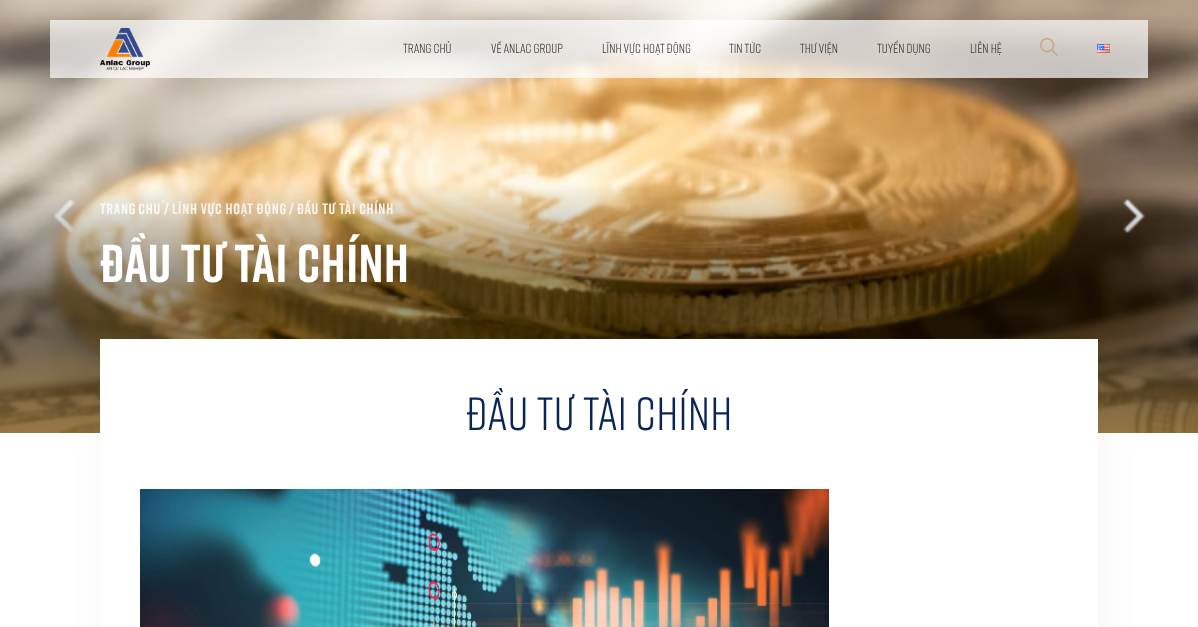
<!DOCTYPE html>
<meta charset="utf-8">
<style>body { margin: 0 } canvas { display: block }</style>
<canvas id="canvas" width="1198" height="627"></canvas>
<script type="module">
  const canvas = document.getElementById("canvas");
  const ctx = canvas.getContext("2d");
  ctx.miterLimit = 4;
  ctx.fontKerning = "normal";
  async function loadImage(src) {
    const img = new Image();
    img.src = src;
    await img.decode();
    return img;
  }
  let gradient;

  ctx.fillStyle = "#ffffff";
  ctx.fillRect(0, 0, 1198, 627);
  ctx.drawImage(await loadImage("img4.png"), 0, 0, 1198, 433);
  ctx.fillStyle = "rgba(255, 255, 255, 0.7)";
  ctx.fillRect(50, 20, 1098, 58);
  ctx.drawImage(await loadImage("img1.png"), 100, 28, 50, 43);
  ctx.font = "13.25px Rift";
  ctx.fillStyle = "#3c3b3a";
  ctx.fillText("TRANG CHỦ", 403, 53);
  ctx.fillText("VỀ ANLAC GROUP", 491, 53);
  ctx.fillText("LĨNH VỰC HOẠT ĐỘNG", 602, 53);
  ctx.fillText("TIN TỨC", 729, 53);
  ctx.fillText("THƯ VIỆN", 800, 53);
  ctx.fillText("TUYỂN DỤNG", 877, 53);
  ctx.fillText("LIÊN HỆ", 970, 53);
  ctx.drawImage(await loadImage("img2.png"), 1040, 38, 18, 18);
  ctx.drawImage(await loadImage("img3.png"), 1097, 44, 13, 9);
  ctx.letterSpacing = "0.75px";
  ctx.wordSpacing = "-1px";
  ctx.font = "bold 15px Rift";
  ctx.fillStyle = "#f9f8f5";
  ctx.fillText("TRANG CHỦ", 100, 214);
  ctx.wordSpacing = "0px";
  ctx.fillText("/", 164, 214);
  ctx.fillStyle = "#f8f3eb";
  ctx.fillText("LĨNH VỰC HOẠT ĐỘNG", 172, 214);
  ctx.fillText("/", 289, 214);
  ctx.fillText("ĐẦU TƯ TÀI CHÍNH", 297, 214);
  ctx.letterSpacing = "0.5px";
  ctx.font = "bold 53.25px Rift";
  ctx.fillStyle = "#ffffff";
  ctx.fillText("Đầu tư tài chính", 100, 282);
  gradient = ctx.createLinearGradient(599, 477, 599, 258);
  gradient.addColorStop(0, "#a6803e");
  gradient.addColorStop(0.65, "rgba(166, 128, 62, 0)");
  ctx.fillStyle = gradient;
  ctx.fillRect(0, 338, 1198, 95);
  ctx.fillStyle = "rgba(78, 49, 0, 0.05)";
  ctx.filter = "blur(17.5px)";
  ctx.beginPath();
  ctx.rect(105, 344, 998, 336);
  ctx.fill();
  ctx.filter = "none";
  ctx.fillStyle = "#ffffff";
  ctx.fillRect(100, 339, 998, 288);
  ctx.font = "46.5px Rift";
  ctx.fillStyle = "#092457";
  ctx.fillText("Đầu tư tài chính", 466, 430);
  ctx.drawImage(await loadImage("img5.png"), 140, 489, 689, 138);
</script>
